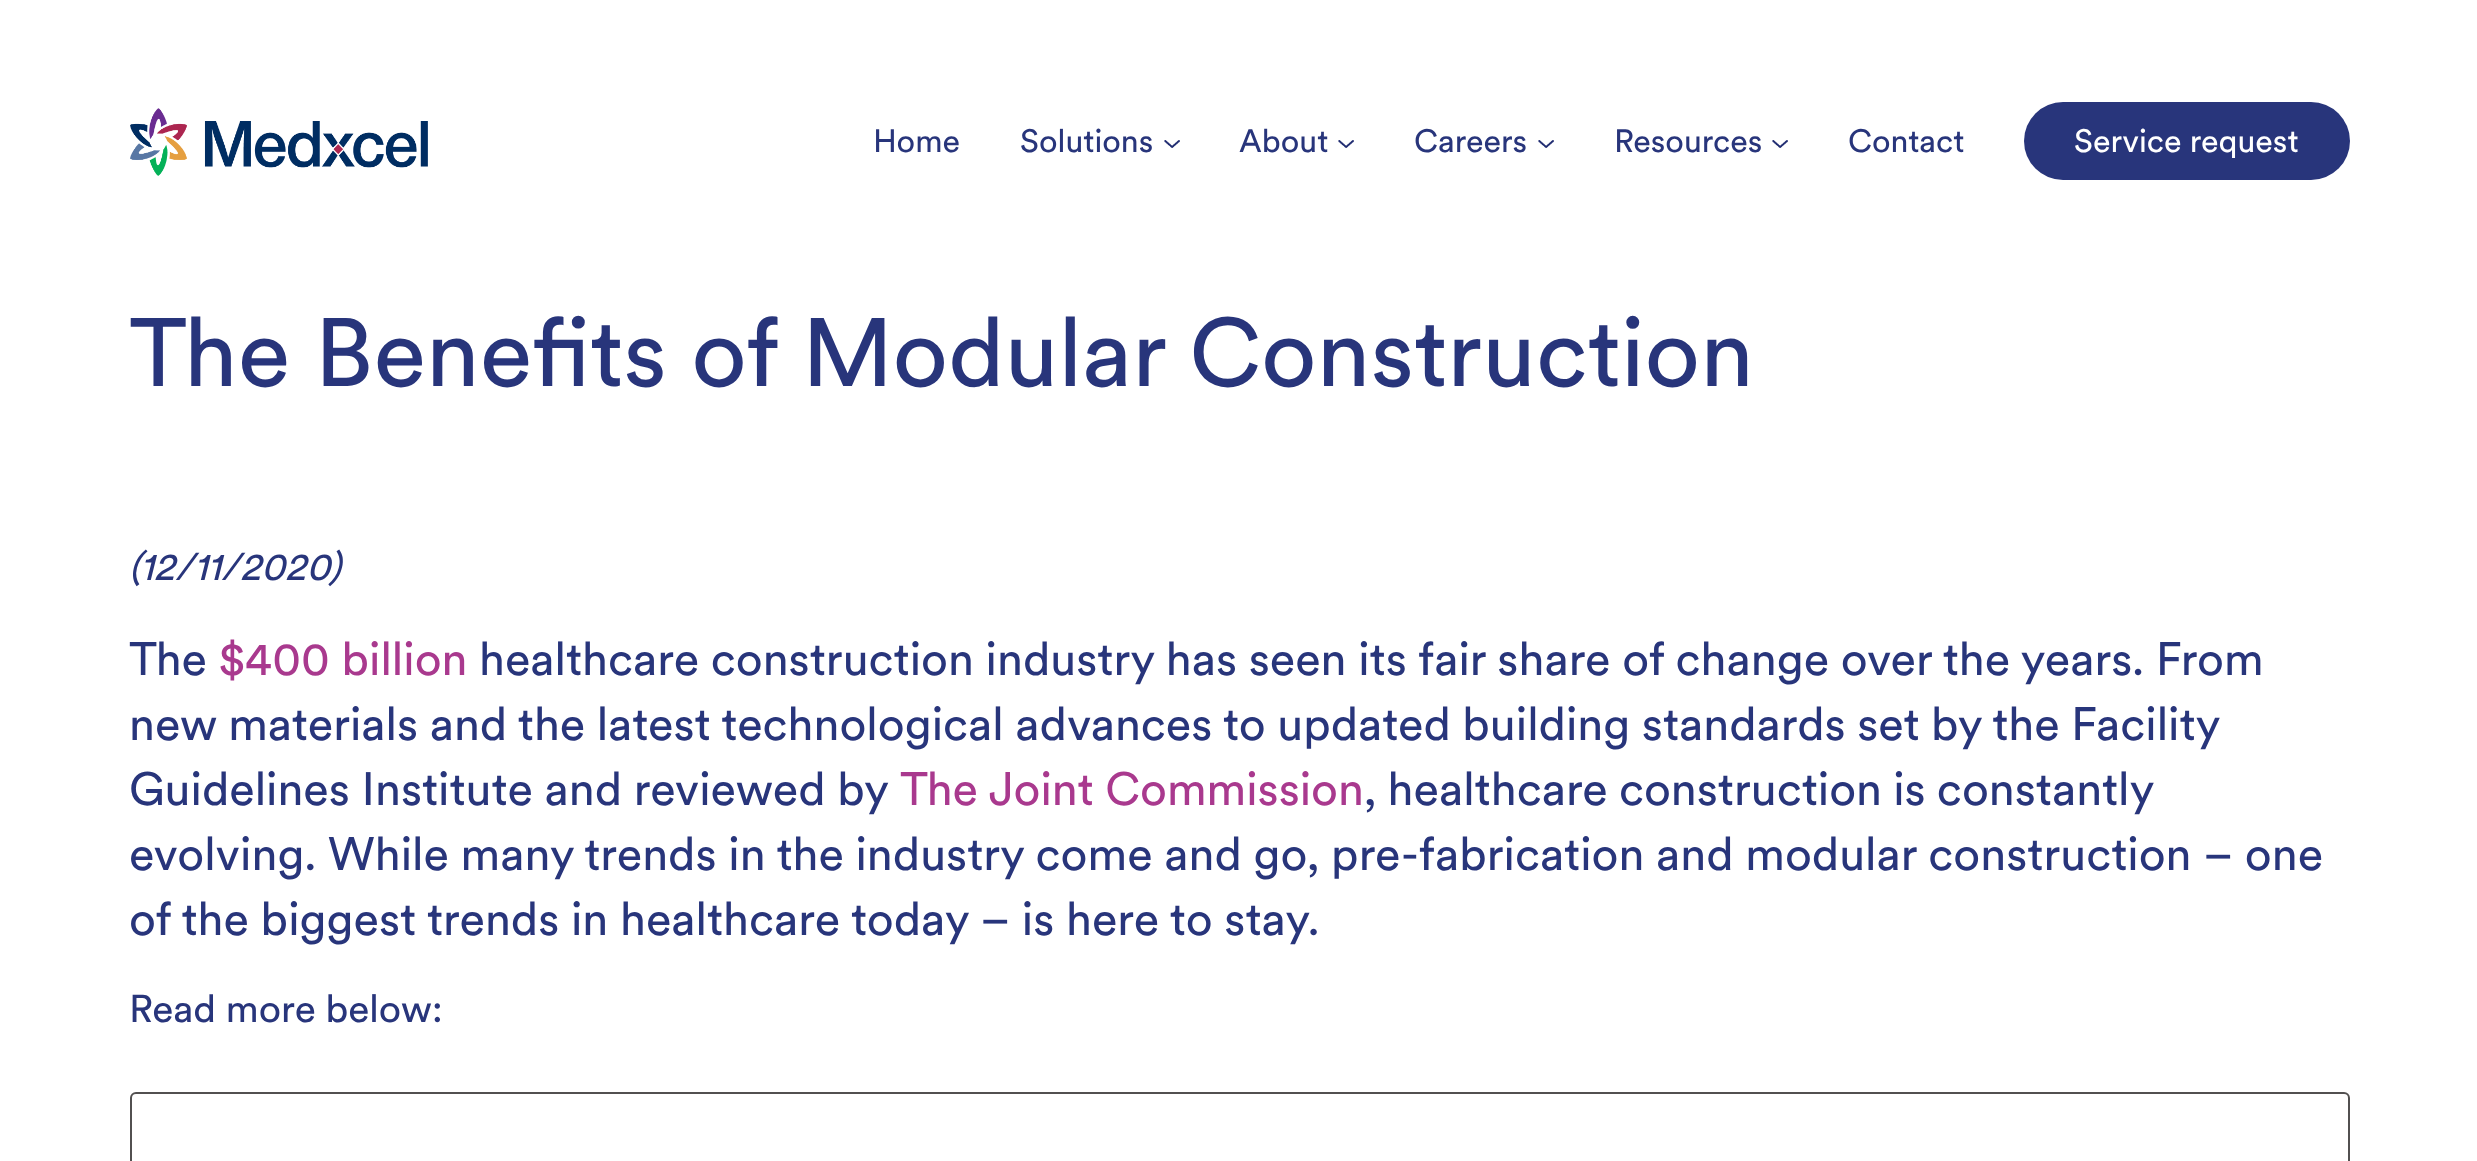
<!DOCTYPE html>
<meta charset="utf-8">
<style>body { margin: 0 } canvas { display: block }</style>
<canvas id="canvas" width="2477" height="1161"></canvas>
<script type="module">
  const canvas = document.getElementById("canvas");
  const ctx = canvas.getContext("2d");
  ctx.miterLimit = 4;
  ctx.fontKerning = "normal";
  async function loadImage(src) {
    const img = new Image();
    img.src = src;
    await img.decode();
    return img;
  }

  ctx.fillStyle = "#ffffff";
  ctx.fillRect(0, 0, 2477, 1161);
  ctx.drawImage(await loadImage("img1.png"), 130, 108, 298, 68);
  ctx.font = "32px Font";
  ctx.fillStyle = "#28357b";
  ctx.fillText("Home", 873, 152);
  ctx.fillText("Solutions", 1020, 152);
  ctx.drawImage(await loadImage("img2.png"), 1164, 140, 16, 8);
  ctx.fillText("About", 1239, 152);
  ctx.drawImage(await loadImage("img2.png"), 1338, 140, 16, 8);
  ctx.fillText("Careers", 1414, 152);
  ctx.drawImage(await loadImage("img2.png"), 1538, 140, 16, 8);
  ctx.fillText("Resources", 1614, 152);
  ctx.drawImage(await loadImage("img2.png"), 1772, 140, 16, 8);
  ctx.fillText("Contact", 1848, 152);
  ctx.beginPath();
  ctx.roundRect(2024, 102, 326, 78, 39);
  ctx.fill();
  ctx.fillStyle = "#ffffff";
  ctx.fillText("Service request", 2074, 152);
  ctx.font = "96px Font";
  ctx.fillStyle = "#28357b";
  ctx.fillText("The Benefits of Modular Construction", 129, 386);
  ctx.font = "italic 38.5px Font";
  ctx.fillText("(12/11/2020)", 129, 580);
  ctx.font = "46.4px Font";
  ctx.fillText("The", 129, 675);
  ctx.fillStyle = "#a9398e";
  ctx.fillText("$400 billion", 219, 675);
  ctx.fillStyle = "#28357b";
  ctx.fillText("healthcare construction industry has seen its fair share of change over the years. From", 479, 675);
  ctx.wordSpacing = "-0.2px";
  ctx.fillText("new materials and the latest technological advances to updated building standards set by the Facility", 129, 740);
  ctx.wordSpacing = "0px";
  ctx.fillText("Guidelines Institute and reviewed by", 129, 805);
  ctx.fillStyle = "#a9398e";
  ctx.fillText("The Joint Commission", 900, 805);
  ctx.wordSpacing = "-0.5px";
  ctx.fillStyle = "#28357b";
  ctx.fillText(", healthcare construction is constantly", 1364, 805);
  ctx.wordSpacing = "0px";
  ctx.fillText("evolving. While many trends in the industry come and go, pre-fabrication and modular construction – one", 129, 870);
  ctx.fillText("of the biggest trends in healthcare today – is here to stay.", 129, 935);
  ctx.font = "38.5px Font";
  ctx.fillText("Read more below:", 129, 1022);
  ctx.beginPath();
  ctx.roundRect(131, 1093, 2218, 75, 5);
  ctx.strokeStyle = "#525050";
  ctx.lineWidth = 2;
  ctx.stroke();
</script>
